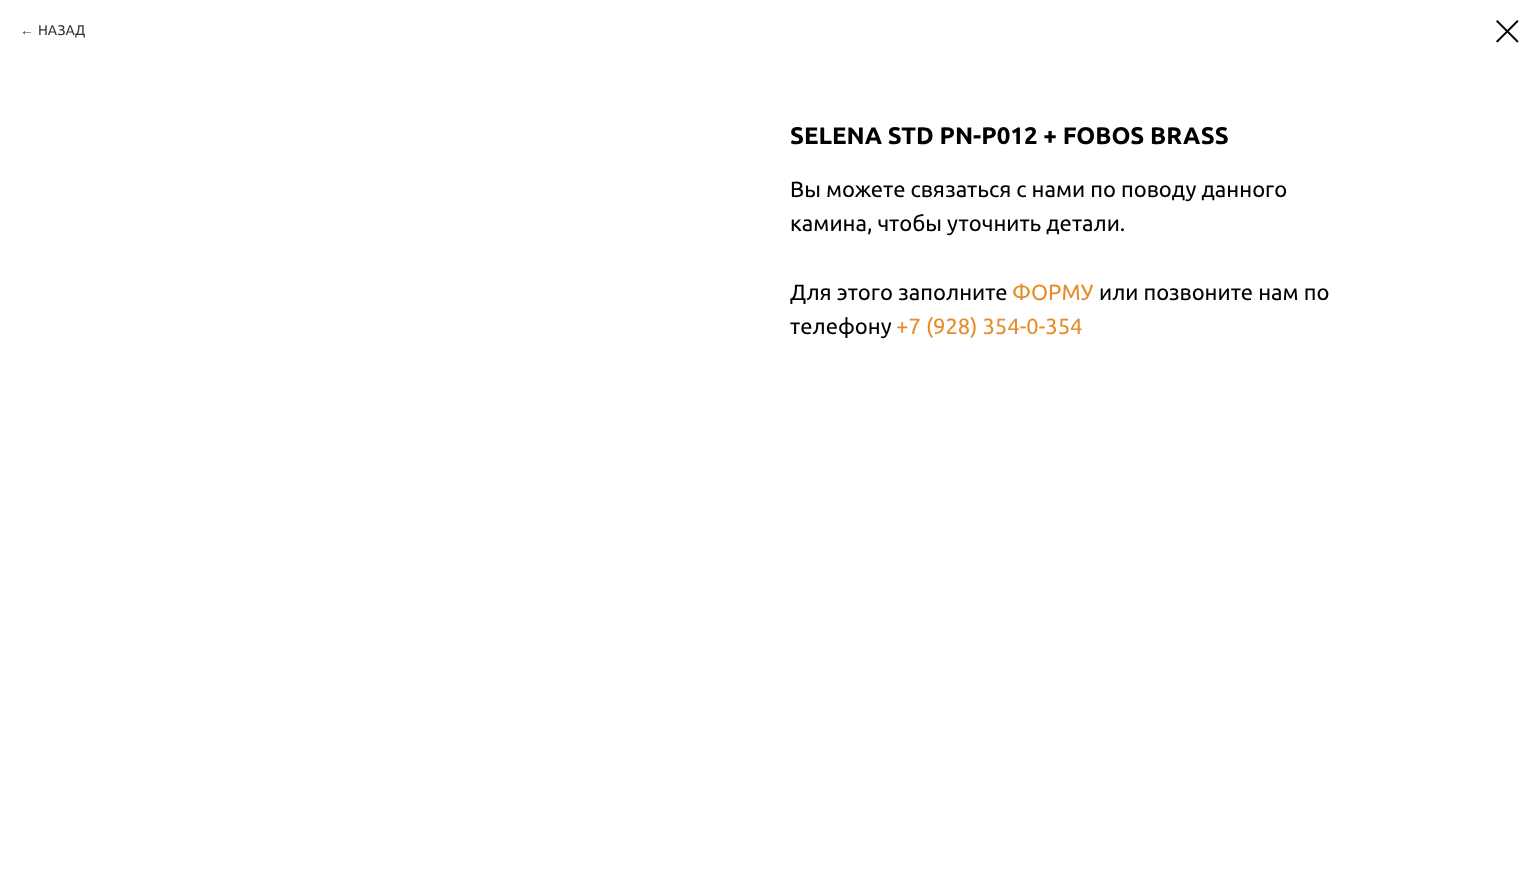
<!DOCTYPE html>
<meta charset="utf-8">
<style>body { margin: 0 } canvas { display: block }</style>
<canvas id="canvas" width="1539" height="881"></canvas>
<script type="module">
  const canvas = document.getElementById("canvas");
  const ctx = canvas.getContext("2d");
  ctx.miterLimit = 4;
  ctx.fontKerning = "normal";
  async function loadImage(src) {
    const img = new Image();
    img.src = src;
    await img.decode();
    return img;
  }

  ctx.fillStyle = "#ffffff";
  ctx.fillRect(0, 0, 1539, 881);
  ctx.font = "14px Liberation Sans";
  ctx.fillStyle = "#333333";
  ctx.fillText("←", 20, 35);
  ctx.font = "14px Ubuntu";
  ctx.fillText("НАЗАД", 38, 35);
  ctx.drawImage(await loadImage("img1.png"), 1496, 20, 23, 23);
  ctx.font = "bold 24px Ubuntu";
  ctx.fillStyle = "#000000";
  ctx.fillText("SELENA STD PN-P012 + FOBOS BRASS", 790, 144);
  ctx.font = "22px Ubuntu";
  ctx.fillText("Вы можете связаться с нами по поводу данного", 790, 197);
  ctx.fillText("камина, чтобы уточнить детали.", 790, 231);
  ctx.fillText("Для этого заполните", 790, 300);
  ctx.fillStyle = "#e68c28";
  ctx.fillText("ФОРМУ", 1012, 300);
  ctx.fillStyle = "#000000";
  ctx.fillText("или позвоните нам по", 1099, 300);
  ctx.fillText("телефону", 790, 334);
  ctx.fillStyle = "#e68c28";
  ctx.fillText("+7 (928) 354-0-354", 896, 334);
</script>
